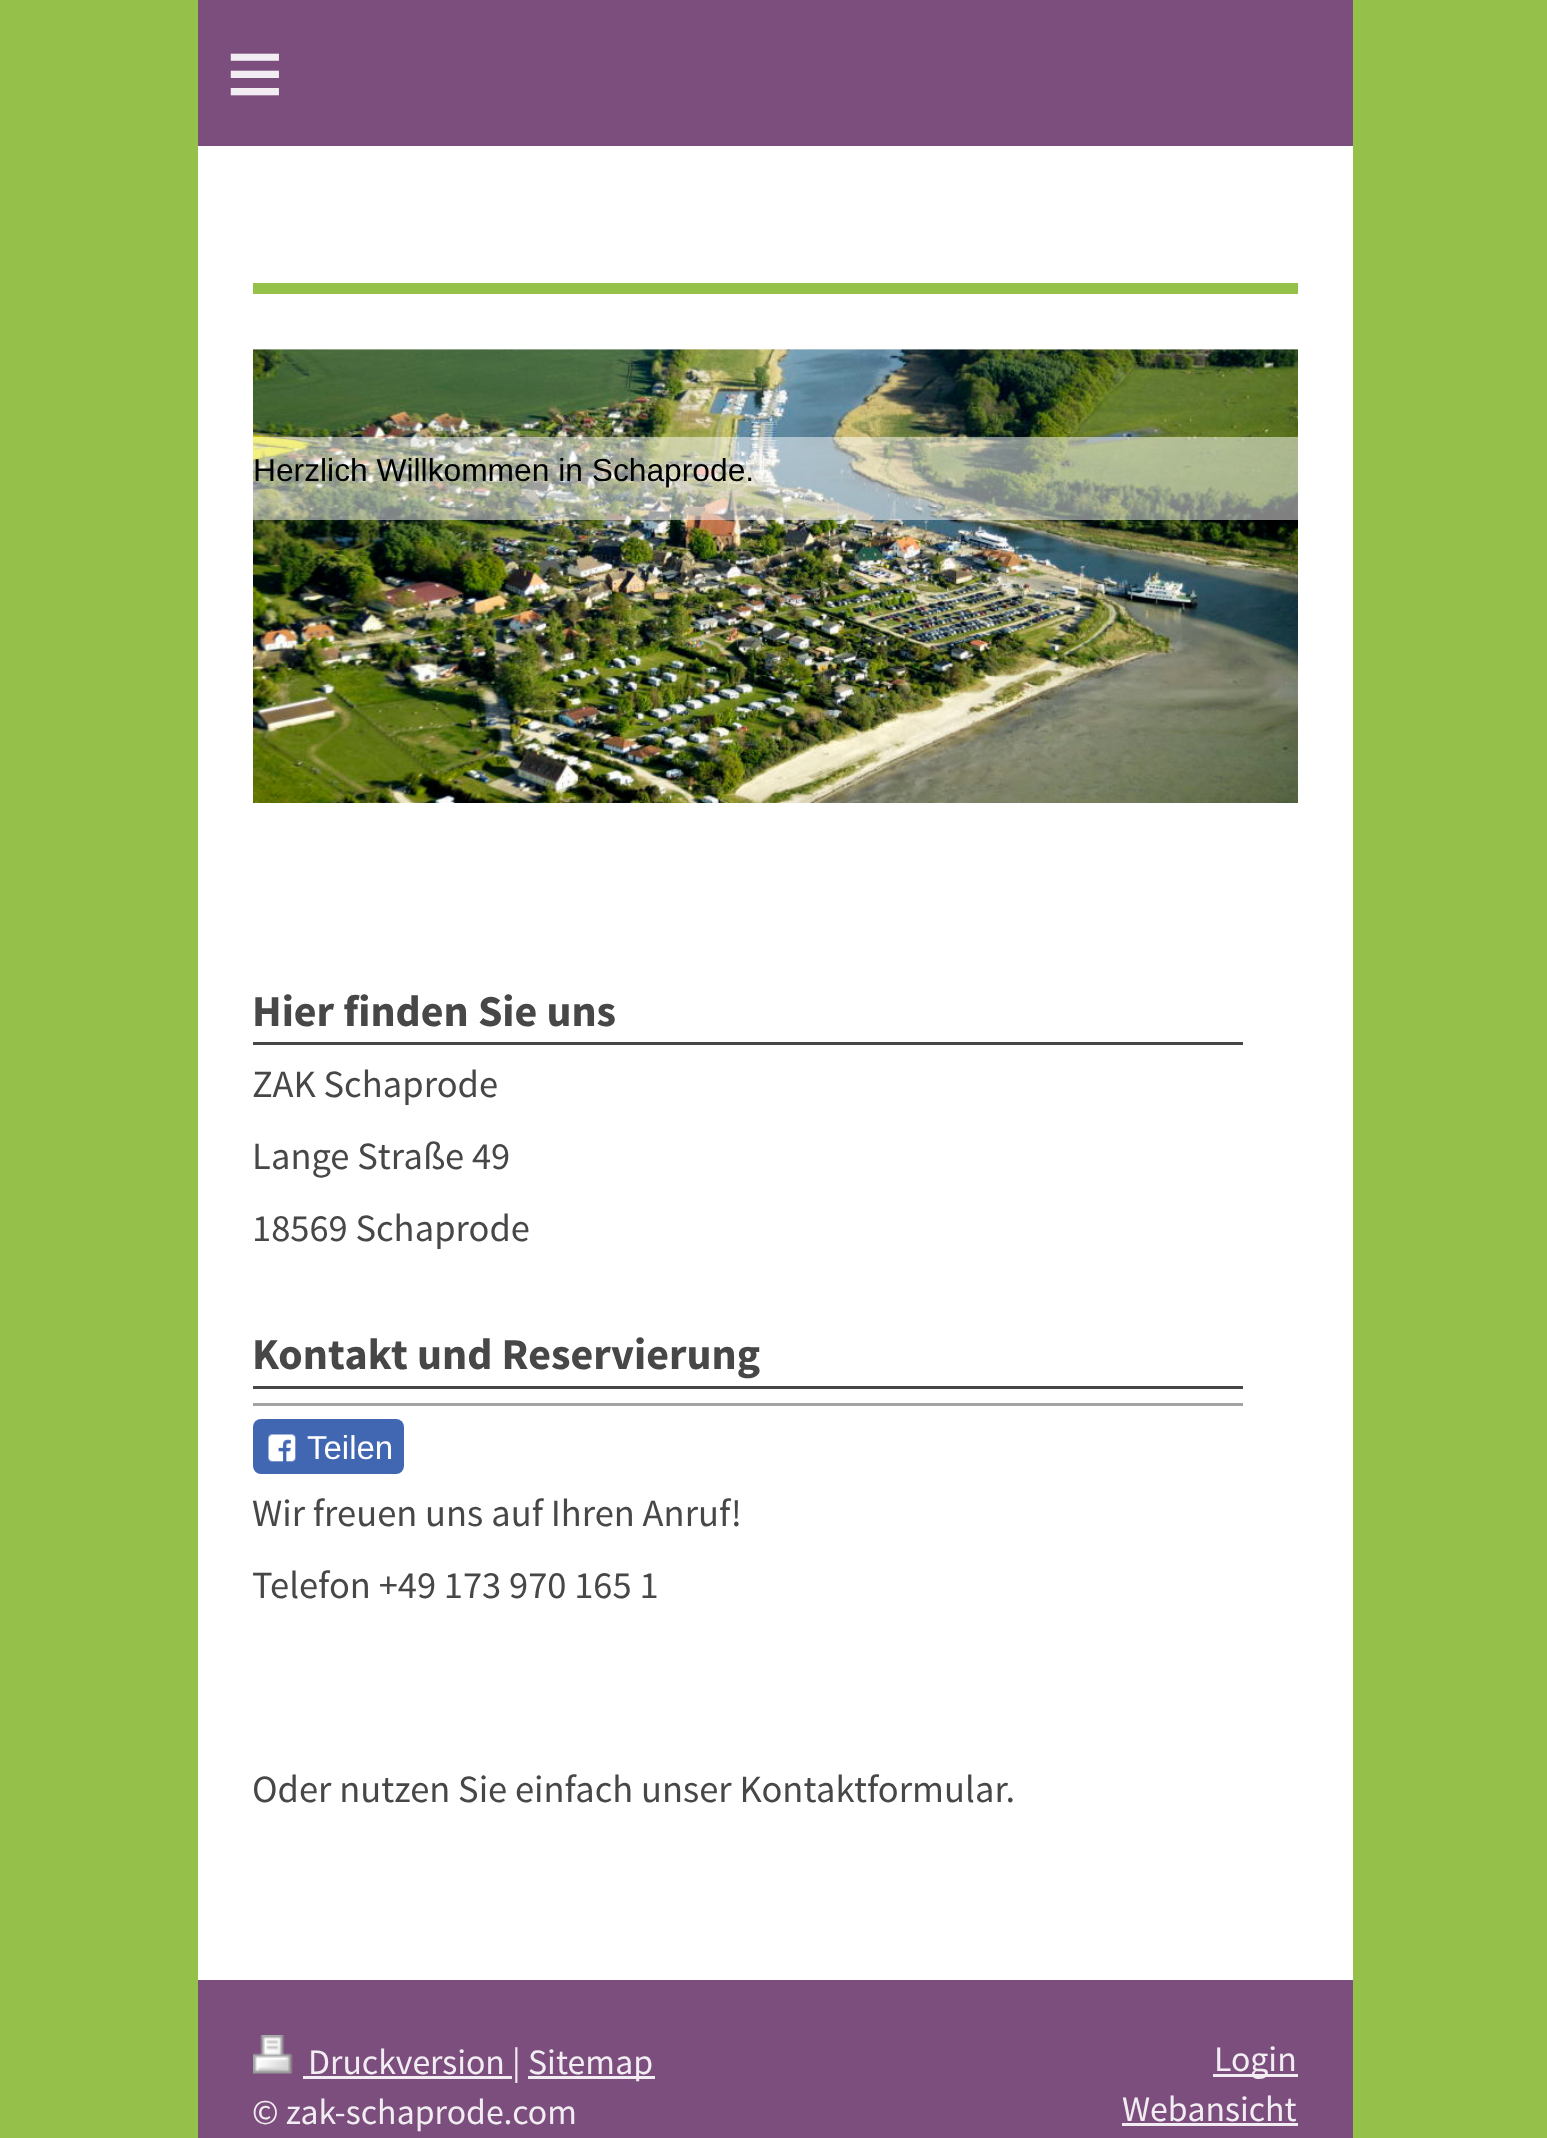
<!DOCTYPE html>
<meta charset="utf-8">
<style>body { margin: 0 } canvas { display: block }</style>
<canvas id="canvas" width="1547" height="2138"></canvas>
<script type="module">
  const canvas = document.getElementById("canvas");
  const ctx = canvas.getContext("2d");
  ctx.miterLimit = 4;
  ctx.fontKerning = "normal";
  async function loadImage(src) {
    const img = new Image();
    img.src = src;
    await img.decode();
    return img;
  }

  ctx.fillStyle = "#95c04a";
  ctx.fillRect(0, 0, 1547, 2138);
  ctx.fillStyle = "#7c4e7d";
  ctx.fillRect(198, 0, 1155, 146);
  ctx.letterSpacing = "29px";
  ctx.font = "99px Liberation Sans";
  ctx.fillStyle = "#f2edf2";
  ctx.fillText("≡", 226, 107);
  ctx.fillStyle = "#ffffff";
  ctx.fillRect(198, 146, 1155, 1834);
  ctx.fillStyle = "#95c04a";
  ctx.fillRect(253, 283, 1045, 11);
  ctx.fillStyle = "#eeeeee";
  ctx.fillRect(253, 349, 1045, 1);
  ctx.drawImage(await loadImage("img1.png"), 253, 349, 1045, 454);
  ctx.fillStyle = "rgba(255, 255, 255, 0.5)";
  ctx.fillRect(253, 437, 1045, 83);
  ctx.letterSpacing = "0px";
  ctx.font = "31.75px Liberation Sans";
  ctx.fillStyle = "#000000";
  ctx.fillText("Herzlich Willkommen in Schaprode.", 253, 481);
  ctx.fillStyle = "#474747";
  ctx.fillRect(253, 1042, 990, 3);
  ctx.font = "bold 44px Source Sans Pro";
  ctx.fillText("Hier finden Sie uns", 252, 1026);
  ctx.font = "38.5px Source Sans Pro";
  ctx.fillText("ZAK Schaprode", 252, 1097);
  ctx.fillText("Lange Straße 49", 252, 1169);
  ctx.fillText("18569 Schaprode", 252, 1241);
  ctx.fillRect(253, 1386, 990, 3);
  ctx.font = "bold 44px Source Sans Pro";
  ctx.fillText("Kontakt und Reservierung", 252, 1369);
  ctx.fillStyle = "#a3a3a3";
  ctx.fillRect(253, 1403, 990, 3);
  ctx.fillStyle = "#4267b2";
  ctx.beginPath();
  ctx.roundRect(253, 1419, 151, 55, 8);
  ctx.fill();
  ctx.drawImage(await loadImage("img2.png"), 268, 1434, 28, 28);
  ctx.font = "33px Liberation Sans";
  ctx.fillStyle = "#ffffff";
  ctx.fillText("Teilen", 307, 1459);
  ctx.font = "38.5px Source Sans Pro";
  ctx.fillStyle = "#474747";
  ctx.fillText("Wir freuen uns auf Ihren Anruf!", 252, 1526);
  ctx.fillText("Telefon +49 173 970 165 1", 252, 1598);
  ctx.fillText("Oder nutzen Sie einfach unser Kontaktformular.", 252, 1802);
  ctx.fillStyle = "#7c4e7d";
  ctx.fillRect(198, 1980, 1155, 158);
  ctx.drawImage(await loadImage("img3.png"), 253, 2035, 40, 39);
  ctx.fillStyle = "#f2edf2";
  ctx.fillRect(303, 2076, 209, 3);
  ctx.font = "35.75px Source Sans Pro";
  ctx.fillText("Druckversion |", 308, 2074);
  ctx.fillRect(528, 2076, 127, 3);
  ctx.fillText("Sitemap", 528, 2074);
  ctx.fillText("© zak-schaprode.com", 252, 2124);
  ctx.fillRect(1213, 2074, 85, 3);
  ctx.fillText("Login", 1214, 2071);
  ctx.fillText("Webansicht", 1122, 2121);
  ctx.fillRect(1122, 2123, 176, 3);
</script>
